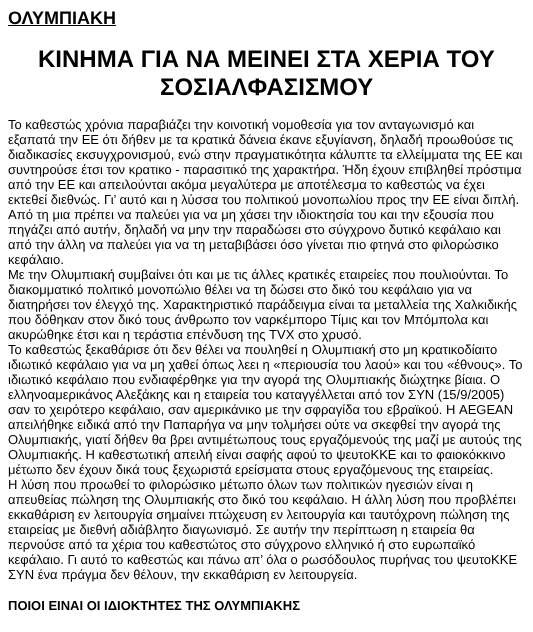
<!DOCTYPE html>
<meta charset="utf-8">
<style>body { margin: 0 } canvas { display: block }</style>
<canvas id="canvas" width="533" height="632"></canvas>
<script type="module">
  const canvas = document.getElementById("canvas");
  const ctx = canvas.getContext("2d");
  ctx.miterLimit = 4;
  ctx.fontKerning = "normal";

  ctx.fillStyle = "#ffffff";
  ctx.fillRect(0, 0, 533, 632);
  ctx.font = "bold 18px Liberation Sans";
  ctx.fillStyle = "#000000";
  ctx.fillText("ΟΛΥΜΠΙΑΚΗ", 8, 24);
  ctx.fillRect(8, 25, 108, 1);
  ctx.font = "bold 24px Liberation Sans";
  ctx.fillText("ΚΙΝΗΜΑ ΓΙΑ ΝΑ ΜΕΙΝΕΙ ΣΤΑ ΧΕΡΙΑ ΤΟΥ", 38, 67);
  ctx.fillText("ΣΟΣΙΑΛΦΑΣΙΣΜΟΥ", 160, 95);
  ctx.font = "13px Liberation Sans";
  ctx.fillText("Το καθεστώς χρόνια παραβιάζει την κοινοτική νομοθεσία για τον ανταγωνισμό και", 8, 129);
  ctx.fillText("εξαπατά την ΕΕ ότι δήθεν με τα κρατικά δάνεια έκανε εξυγίανση, δηλαδή προωθούσε τις", 8, 144);
  ctx.fillText("διαδικασίες εκσυγχρονισμού, ενώ στην πραγματικότητα κάλυπτε τα ελλείμματα της ΕΕ και", 8, 159);
  ctx.fillText("συντηρούσε έτσι τον κρατικο - παρασιτικό της χαρακτήρα. Ήδη έχουν επιβληθεί πρόστιμα", 8, 174);
  ctx.fillText("από την ΕΕ και απειλούνται ακόμα μεγαλύτερα με αποτέλεσμα το καθεστώς να έχει", 8, 189);
  ctx.fillText("εκτεθεί διεθνώς. Γι’ αυτό και η λύσσα του πολιτικού μονοπωλίου προς την ΕΕ είναι διπλή.", 8, 204);
  ctx.fillText("Από τη μια πρέπει να παλεύει για να μη χάσει την ιδιοκτησία του και την εξουσία που", 8, 219);
  ctx.fillText("πηγάζει από αυτήν, δηλαδή να μην την παραδώσει στο σύγχρονο δυτικό κεφάλαιο και", 8, 234);
  ctx.fillText("από την άλλη να παλεύει για να τη μεταβιβάσει όσο γίνεται πιο φτηνά στο φιλορώσικο", 8, 249);
  ctx.fillText("κεφάλαιο.", 8, 264);
  ctx.fillText("Με την Ολυμπιακή συμβαίνει ότι και με τις άλλες κρατικές εταιρείες που πουλιούνται. Το", 8, 279);
  ctx.fillText("διακομματικό πολιτικό μονοπώλιο θέλει να τη δώσει στο δικό του κεφάλαιο για να", 8, 294);
  ctx.fillText("διατηρήσει τον έλεγχό της. Χαρακτηριστικό παράδειγμα είναι τα μεταλλεία της Χαλκιδικής", 8, 309);
  ctx.fillText("που δόθηκαν στον δικό τους άνθρωπο τον ναρκέμπορο Τίμις και τον Μπόμπολα και", 8, 324);
  ctx.fillText("ακυρώθηκε έτσι και η τεράστια επένδυση της TVX στο χρυσό.", 8, 339);
  ctx.fillText("Το καθεστώς ξεκαθάρισε ότι δεν θέλει να πουληθεί η Ολυμπιακή στο μη κρατικοδίαιτο", 8, 354);
  ctx.fillText("ιδιωτικό κεφάλαιο για να μη χαθεί όπως λεει η «περιουσία του λαού» και του «έθνους». Το", 8, 369);
  ctx.fillText("ιδιωτικό κεφάλαιο που ενδιαφέρθηκε για την αγορά της Ολυμπιακής διώχτηκε βίαια. Ο", 8, 384);
  ctx.fillText("ελληνοαμερικάνος Αλεξάκης και η εταιρεία του καταγγέλλεται από τον ΣΥΝ (15/9/2005)", 8, 399);
  ctx.fillText("σαν το χειρότερο κεφάλαιο, σαν αμερικάνικο με την σφραγίδα του", 8, 414);
  ctx.fillText("εβραϊκού. Η AEGEAN", 387, 414);
  ctx.fillText("απειλήθηκε ειδικά από την Παπαρήγα να μην τολμήσει ούτε να σκεφθεί την αγορά της", 8, 429);
  ctx.fillText("Ολυμπιακής, γιατί δήθεν θα βρει αντιμέτωπους τους εργαζόμενούς της μαζί με αυτούς της", 8, 444);
  ctx.fillText("Ολυμπιακής. Η καθεστωτική απειλή είναι σαφής αφού το ψευτοΚΚΕ και το φαιοκόκκινο", 8, 459);
  ctx.fillText("μέτωπο δεν έχουν δικά τους ξεχωριστά ερείσματα στους εργαζόμενους της εταιρείας.", 8, 474);
  ctx.fillText("Η λύση που προωθεί το φιλορώσικο μέτωπο όλων των πολιτικών ηγεσιών είναι η", 8, 489);
  ctx.fillText("απευθείας πώληση της Ολυμπιακής στο δικό του κεφάλαιο. Η άλλη λύση που προβλέπει", 8, 504);
  ctx.fillText("εκκαθάριση εν λειτουργία σημαίνει πτώχευση εν λειτουργία και ταυτόχρονη πώληση της", 8, 519);
  ctx.fillText("εταιρείας με διεθνή αδιάβλητο διαγωνισμό. Σε αυτήν την περίπτωση η εταιρεία θα", 8, 534);
  ctx.fillText("περνούσε από τα χέρια του καθεστώτος στο σύγχρονο ελληνικό ή στο ευρωπαϊκό", 8, 549);
  ctx.fillText("κεφάλαιο. Γι αυτό το καθεστώς και πάνω απ’ όλα ο ρωσόδουλος πυρήνας του ψευτοΚΚΕ", 8, 564);
  ctx.fillText("ΣΥΝ ένα πράγμα δεν θέλουν, την εκκαθάριση εν λειτουργεία.", 8, 579);
  ctx.font = "bold 13px Liberation Sans";
  ctx.fillText("ΠΟΙΟΙ ΕΙΝΑΙ ΟΙ ΙΔΙΟΚΤΗΤΕΣ ΤΗΣ ΟΛΥΜΠΙΑΚΗΣ", 8, 610);
</script>
